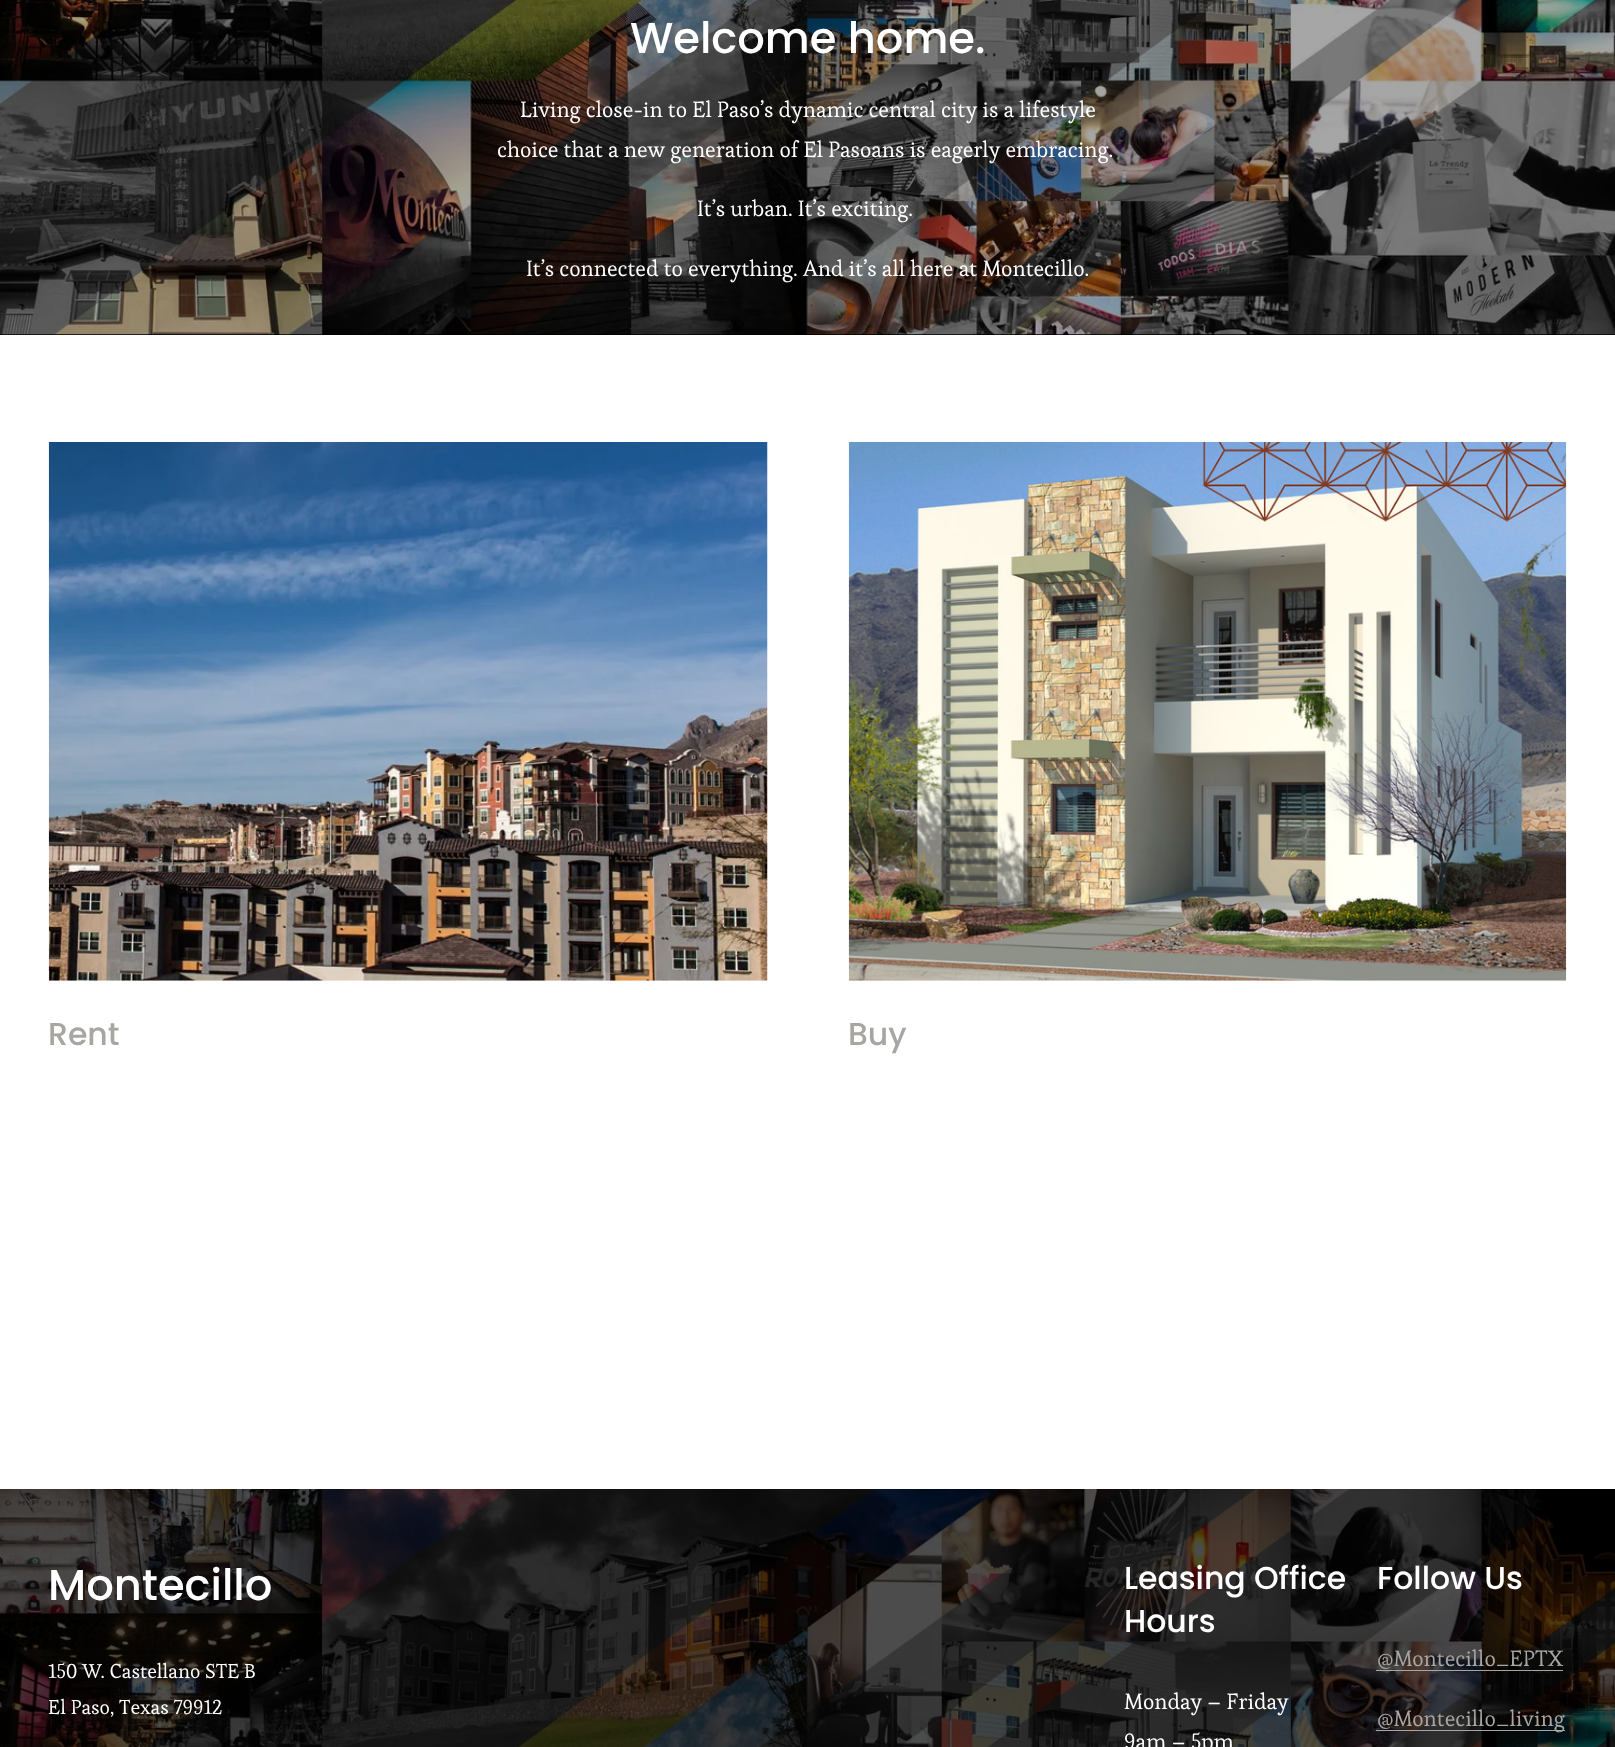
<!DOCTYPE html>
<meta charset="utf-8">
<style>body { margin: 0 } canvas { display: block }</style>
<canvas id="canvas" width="1615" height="1747"></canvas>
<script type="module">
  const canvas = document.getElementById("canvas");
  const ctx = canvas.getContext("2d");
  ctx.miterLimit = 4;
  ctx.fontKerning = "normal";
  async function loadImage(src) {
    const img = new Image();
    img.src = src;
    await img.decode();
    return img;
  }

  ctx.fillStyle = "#000000";
  ctx.fillRect(0, 0, 1615, 1747);
  ctx.drawImage(await loadImage("img1.png"), 0, 0, 1615, 335);
  ctx.font = "500 43.25px Poppins";
  ctx.fillStyle = "#ffffff";
  ctx.fillText("Welcome home.", 630, 53);
  ctx.font = "21.95px Esteban";
  ctx.fillText("Living close-in to El Paso’s dynamic central city is a lifestyle", 520, 117);
  ctx.fillText("choice that a new generation of El Pasoans is eagerly embracing.", 497, 157);
  ctx.fillText("It’s urban. It’s exciting.", 697, 216);
  ctx.fillText("It’s connected to everything. And it’s all here at Montecillo.", 526, 276);
  ctx.fillRect(0, 335, 1615, 1154);
  ctx.drawImage(await loadImage("img2.png"), 48, 442, 720, 539);
  ctx.font = "500 31.5px Poppins";
  ctx.fillStyle = "#a8a6a1";
  ctx.fillText("Rent", 48, 1045);
  ctx.drawImage(await loadImage("img3.png"), 848, 442, 719, 539);
  ctx.fillText("Buy", 848, 1045);
  ctx.drawImage(await loadImage("img4.png"), 0, 1489, 1615, 258);
  ctx.font = "500 43.25px Poppins";
  ctx.fillStyle = "#ffffff";
  ctx.fillText("Montecillo", 48, 1600);
  ctx.font = "20px Esteban";
  ctx.fillText("150 W. Castellano STE B", 48, 1678);
  ctx.fillText("El Paso, Texas 79912", 48, 1714);
  ctx.font = "500 31.5px Poppins";
  ctx.fillText("Leasing Office", 1124, 1589);
  ctx.fillText("Hours", 1124, 1632);
  ctx.font = "21.95px Esteban";
  ctx.fillText("Monday – Friday", 1124, 1709);
  ctx.fillText("9am – 5pm", 1124, 1749);
  ctx.font = "500 31.5px Poppins";
  ctx.fillText("Follow Us", 1377, 1589);
  ctx.font = "21.95px Esteban";
  ctx.fillStyle = "#a8a6a1";
  ctx.fillText("@Montecillo_EPTX", 1377, 1666);
  ctx.fillRect(1376, 1670, 187, 1);
  ctx.fillRect(1376, 1730, 189, 1);
  ctx.fillText("@Montecillo_living", 1377, 1726);
</script>
